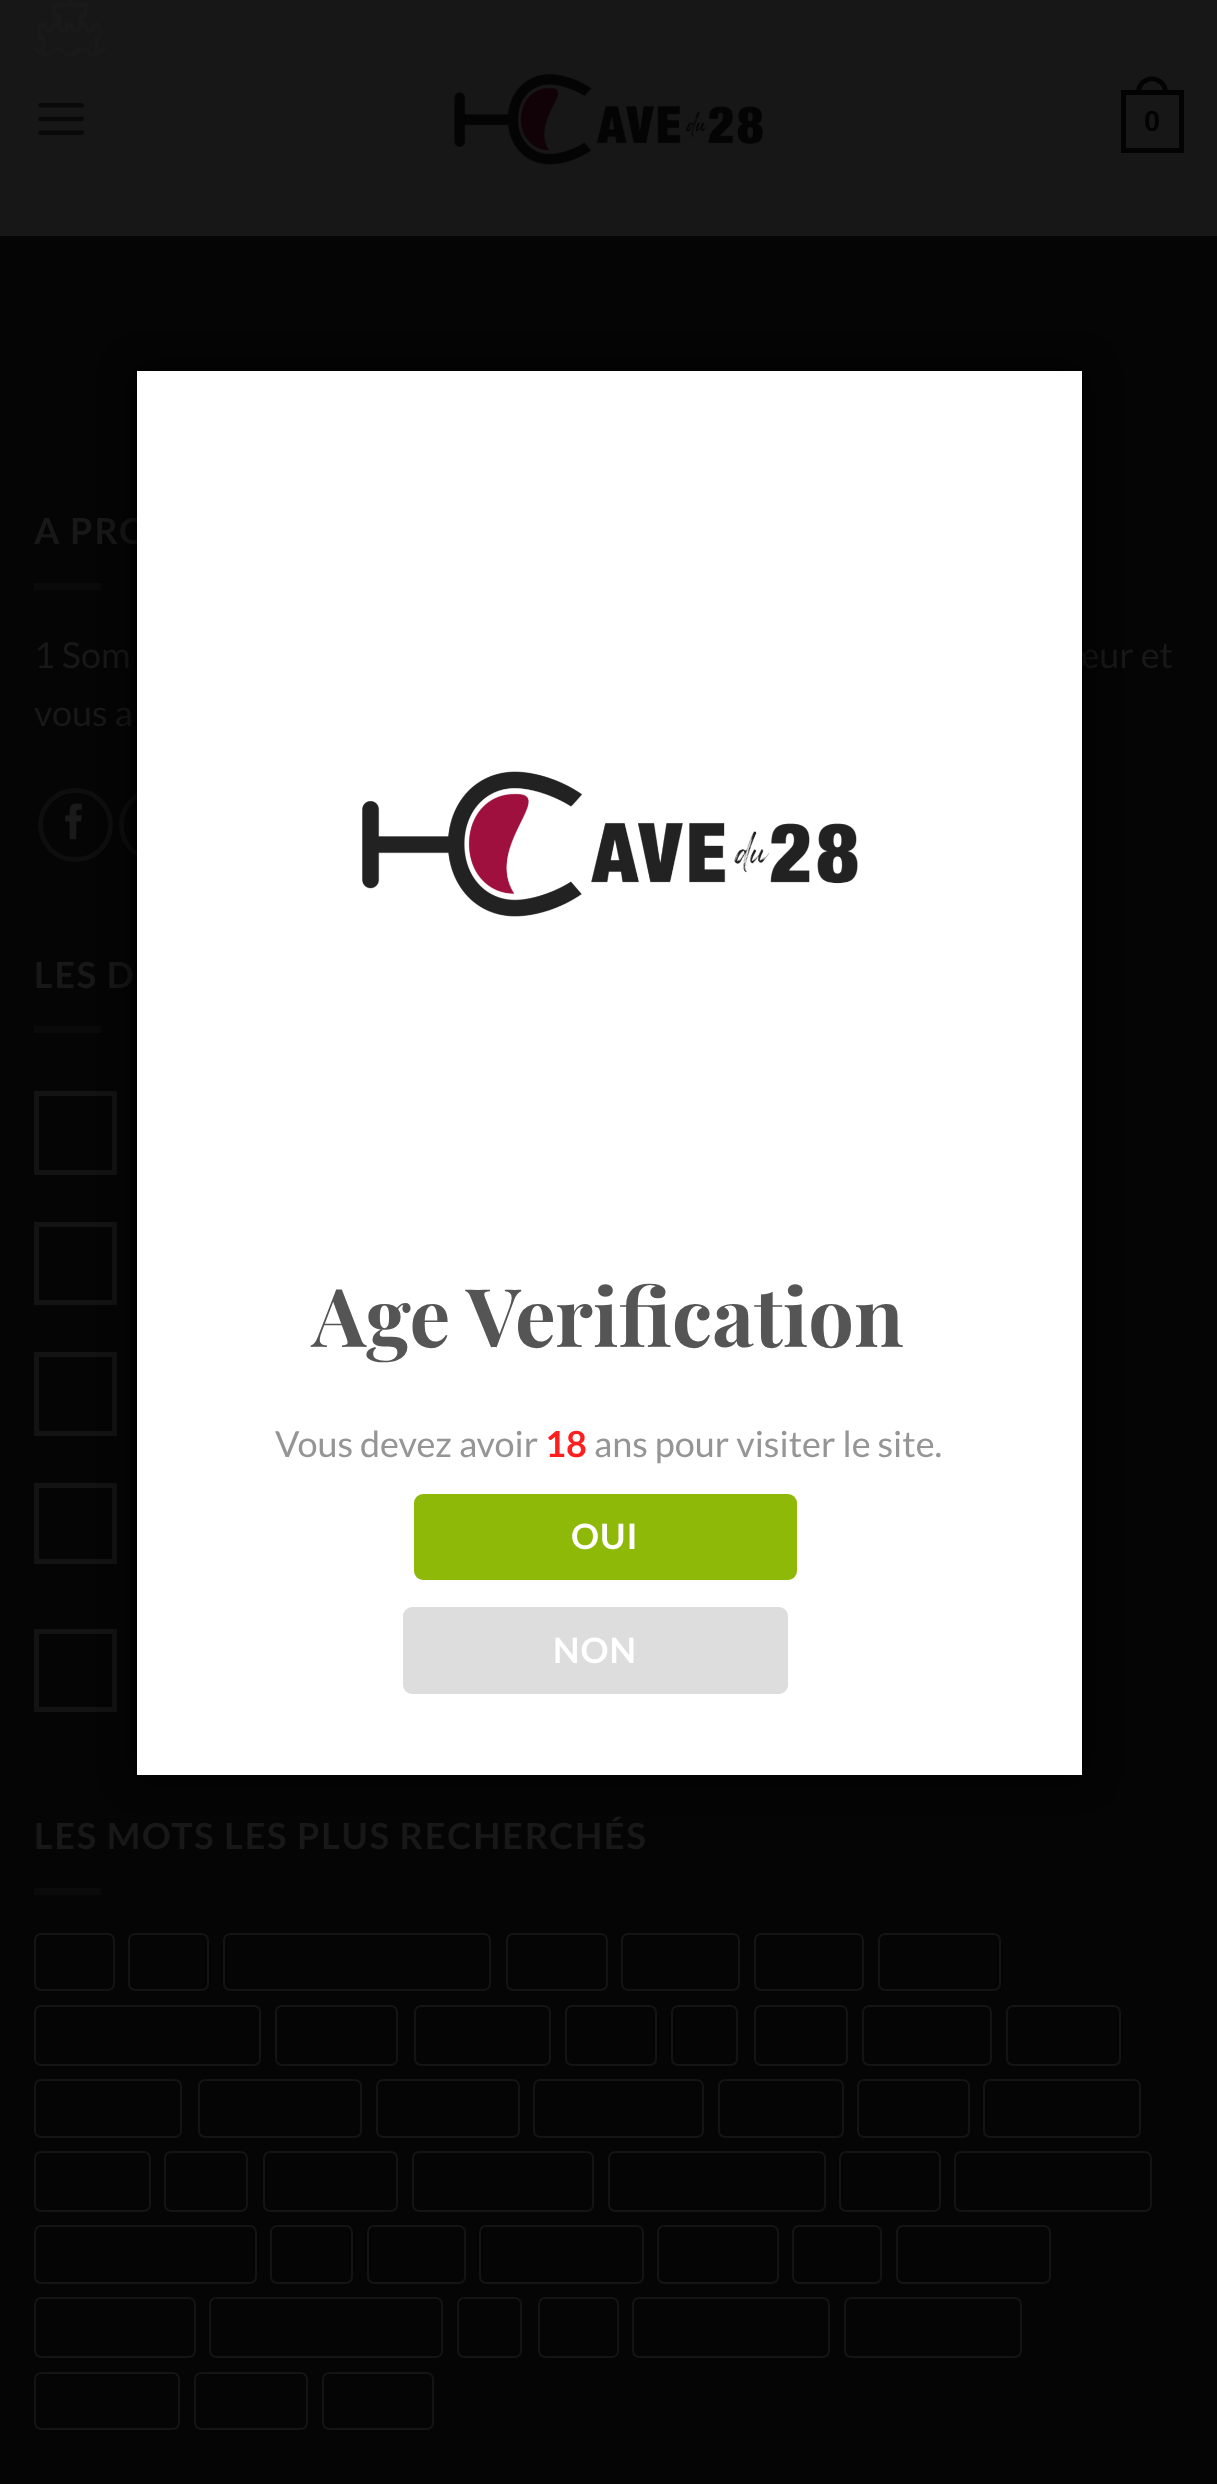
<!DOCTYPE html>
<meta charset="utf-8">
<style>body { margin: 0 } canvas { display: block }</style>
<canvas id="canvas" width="1217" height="2484"></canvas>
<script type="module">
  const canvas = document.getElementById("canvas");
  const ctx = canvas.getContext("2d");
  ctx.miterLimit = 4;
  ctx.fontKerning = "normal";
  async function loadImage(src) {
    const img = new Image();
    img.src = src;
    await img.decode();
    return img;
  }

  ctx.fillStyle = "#050505";
  ctx.fillRect(0, 0, 1217, 2484);
  ctx.fillStyle = "#171717";
  ctx.fillRect(0, 0, 1217, 236);
  ctx.drawImage(await loadImage("img1.png"), 38, 103, 46, 32);
  ctx.drawImage(await loadImage("img2.png"), 454, 74, 309, 91);
  ctx.strokeStyle = "#030303";
  ctx.lineWidth = 5;
  ctx.strokeRect(1123.5, 92.5, 58, 58);
  ctx.fillStyle = "#030303";
  ctx.beginPath();
  ctx.moveTo(1152, 76.5);
  ctx.bezierCurveTo(1160.5, 76.5, 1168, 83.5, 1168, 92);
  ctx.lineTo(1168, 94.5);
  ctx.lineTo(1136, 94.5);
  ctx.lineTo(1136, 92);
  ctx.bezierCurveTo(1136, 83.5, 1143.5, 76.5, 1152, 76.5);
  ctx.closePath();
  ctx.moveTo(1152, 81);
  ctx.bezierCurveTo(1158, 81, 1163, 86, 1163, 92);
  ctx.lineTo(1163, 94.5);
  ctx.lineTo(1141, 94.5);
  ctx.lineTo(1141, 92);
  ctx.bezierCurveTo(1141, 86, 1146, 81, 1152, 81);
  ctx.closePath();
  ctx.fill("evenodd");
  ctx.font = "bold 29px Liberation Sans";
  ctx.fillText("0", 1144, 131);
  ctx.drawImage(await loadImage("img3.png"), 33, 0, 73, 57);
  ctx.letterSpacing = "1.8px";
  ctx.font = "bold 36px Lato";
  ctx.fillStyle = "#181818";
  ctx.fillText("A PRO", 34, 544);
  ctx.fillStyle = "#0a0a0a";
  ctx.fillRect(34, 583, 67, 7);
  ctx.letterSpacing = "0px";
  ctx.font = "36px Lato";
  ctx.fillStyle = "#181818";
  ctx.fillText("1 Som", 34, 668);
  ctx.fillText("œur et", 1068, 668);
  ctx.fillText("vous a", 34, 726);
  ctx.beginPath();
  ctx.roundRect(40.5, 790.5, 70, 69, 34.5);
  ctx.strokeStyle = "#0e0e0e";
  ctx.stroke();
  ctx.drawImage(await loadImage("img4.png"), 65, 803, 17, 37);
  ctx.beginPath();
  ctx.roundRect(121.5, 790.5, 70, 69, 34.5);
  ctx.stroke();
  ctx.letterSpacing = "1.8px";
  ctx.font = "bold 36px Lato";
  ctx.fillText("LES D", 34, 988);
  ctx.fillStyle = "#0a0a0a";
  ctx.fillRect(34, 1026, 67, 7);
  ctx.strokeStyle = "#131313";
  ctx.strokeRect(36.5, 1093.5, 78, 79);
  ctx.strokeRect(36.5, 1224.5, 78, 78);
  ctx.strokeRect(36.5, 1354.5, 78, 79);
  ctx.strokeRect(36.5, 1485.5, 78, 76);
  ctx.strokeRect(36.5, 1631.5, 78, 78);
  ctx.fillStyle = "#181818";
  ctx.fillText("LES MOTS LES PLUS RECHERCHÉS", 34, 1849);
  ctx.fillStyle = "#0a0a0a";
  ctx.fillRect(34, 1888, 67, 7);
  ctx.beginPath();
  ctx.roundRect(35, 1934, 79, 56, 6);
  ctx.strokeStyle = "#141414";
  ctx.lineWidth = 2;
  ctx.stroke();
  ctx.beginPath();
  ctx.roundRect(129, 1934, 79, 56, 6);
  ctx.stroke();
  ctx.beginPath();
  ctx.roundRect(224, 1934, 266, 56, 6);
  ctx.stroke();
  ctx.beginPath();
  ctx.roundRect(507, 1934, 100, 56, 6);
  ctx.stroke();
  ctx.beginPath();
  ctx.roundRect(622, 1934, 117, 56, 6);
  ctx.stroke();
  ctx.beginPath();
  ctx.roundRect(755, 1934, 108, 56, 6);
  ctx.stroke();
  ctx.beginPath();
  ctx.roundRect(879, 1934, 121, 56, 6);
  ctx.stroke();
  ctx.beginPath();
  ctx.roundRect(35, 2006, 225, 59, 6);
  ctx.stroke();
  ctx.beginPath();
  ctx.roundRect(276, 2006, 121, 59, 6);
  ctx.stroke();
  ctx.beginPath();
  ctx.roundRect(415, 2006, 135, 59, 6);
  ctx.stroke();
  ctx.beginPath();
  ctx.roundRect(566, 2006, 90, 59, 6);
  ctx.stroke();
  ctx.beginPath();
  ctx.roundRect(672, 2006, 65, 59, 6);
  ctx.stroke();
  ctx.beginPath();
  ctx.roundRect(755, 2006, 92, 59, 6);
  ctx.stroke();
  ctx.beginPath();
  ctx.roundRect(863, 2006, 128, 59, 6);
  ctx.stroke();
  ctx.beginPath();
  ctx.roundRect(1007, 2006, 113, 59, 6);
  ctx.stroke();
  ctx.beginPath();
  ctx.roundRect(35, 2080, 146, 57, 6);
  ctx.stroke();
  ctx.beginPath();
  ctx.roundRect(199, 2080, 162, 57, 6);
  ctx.stroke();
  ctx.beginPath();
  ctx.roundRect(377, 2080, 142, 57, 6);
  ctx.stroke();
  ctx.beginPath();
  ctx.roundRect(534, 2080, 169, 57, 6);
  ctx.stroke();
  ctx.beginPath();
  ctx.roundRect(719, 2080, 124, 57, 6);
  ctx.stroke();
  ctx.beginPath();
  ctx.roundRect(858, 2080, 111, 57, 6);
  ctx.stroke();
  ctx.beginPath();
  ctx.roundRect(984, 2080, 156, 57, 6);
  ctx.stroke();
  ctx.beginPath();
  ctx.roundRect(35, 2152, 115, 59, 6);
  ctx.stroke();
  ctx.beginPath();
  ctx.roundRect(165, 2152, 82, 59, 6);
  ctx.stroke();
  ctx.beginPath();
  ctx.roundRect(264, 2152, 133, 59, 6);
  ctx.stroke();
  ctx.beginPath();
  ctx.roundRect(413, 2152, 180, 59, 6);
  ctx.stroke();
  ctx.beginPath();
  ctx.roundRect(609, 2152, 216, 59, 6);
  ctx.stroke();
  ctx.beginPath();
  ctx.roundRect(840, 2152, 100, 59, 6);
  ctx.stroke();
  ctx.beginPath();
  ctx.roundRect(955, 2152, 196, 59, 6);
  ctx.stroke();
  ctx.beginPath();
  ctx.roundRect(35, 2226, 221, 57, 6);
  ctx.stroke();
  ctx.beginPath();
  ctx.roundRect(271, 2226, 81, 57, 6);
  ctx.stroke();
  ctx.beginPath();
  ctx.roundRect(368, 2226, 97, 57, 6);
  ctx.stroke();
  ctx.beginPath();
  ctx.roundRect(480, 2226, 163, 57, 6);
  ctx.stroke();
  ctx.beginPath();
  ctx.roundRect(658, 2226, 120, 57, 6);
  ctx.stroke();
  ctx.beginPath();
  ctx.roundRect(793, 2226, 88, 57, 6);
  ctx.stroke();
  ctx.beginPath();
  ctx.roundRect(897, 2226, 153, 57, 6);
  ctx.stroke();
  ctx.beginPath();
  ctx.roundRect(35, 2298, 160, 59, 6);
  ctx.stroke();
  ctx.beginPath();
  ctx.roundRect(210, 2298, 232, 59, 6);
  ctx.stroke();
  ctx.beginPath();
  ctx.roundRect(458, 2298, 63, 59, 6);
  ctx.stroke();
  ctx.beginPath();
  ctx.roundRect(539, 2298, 79, 59, 6);
  ctx.stroke();
  ctx.beginPath();
  ctx.roundRect(633, 2298, 196, 59, 6);
  ctx.stroke();
  ctx.beginPath();
  ctx.roundRect(845, 2298, 176, 59, 6);
  ctx.stroke();
  ctx.beginPath();
  ctx.roundRect(35, 2373, 144, 56, 6);
  ctx.stroke();
  ctx.beginPath();
  ctx.roundRect(195, 2373, 112, 56, 6);
  ctx.stroke();
  ctx.beginPath();
  ctx.roundRect(323, 2373, 110, 56, 6);
  ctx.stroke();
  ctx.fillStyle = "#000000";
  ctx.filter = "blur(17px)";
  ctx.beginPath();
  ctx.rect(137, 371, 945, 1404);
  ctx.fill();
  ctx.filter = "none";
  ctx.fillStyle = "#ffffff";
  ctx.fillRect(137, 371, 945, 1404);
  ctx.drawImage(await loadImage("img5.png"), 362, 771, 496, 146);
  ctx.letterSpacing = "0px";
  ctx.font = "bold 81px Playfair Display";
  ctx.fillStyle = "#555555";
  ctx.fillText("Age Verification", 312, 1347);
  ctx.font = "36px Lato";
  ctx.fillStyle = "#959595";
  ctx.fillText("Vous devez avoir", 275, 1457);
  ctx.font = "bold 36px Lato";
  ctx.fillStyle = "#ff1f1f";
  ctx.fillText("18", 545, 1457);
  ctx.font = "36px Lato";
  ctx.fillStyle = "#959595";
  ctx.fillText("ans pour visiter le site.", 594, 1457);
  ctx.fillStyle = "#8eb908";
  ctx.beginPath();
  ctx.roundRect(414, 1494, 383, 86, 9);
  ctx.fill();
  ctx.letterSpacing = "1px";
  ctx.font = "bold 35px Lato";
  ctx.fillStyle = "#ffffff";
  ctx.fillText("OUI", 571, 1549);
  ctx.fillStyle = "#dddddd";
  ctx.beginPath();
  ctx.roundRect(403, 1607, 385, 87, 9);
  ctx.fill();
  ctx.fillStyle = "#ffffff";
  ctx.fillText("NON", 553, 1663);
</script>
